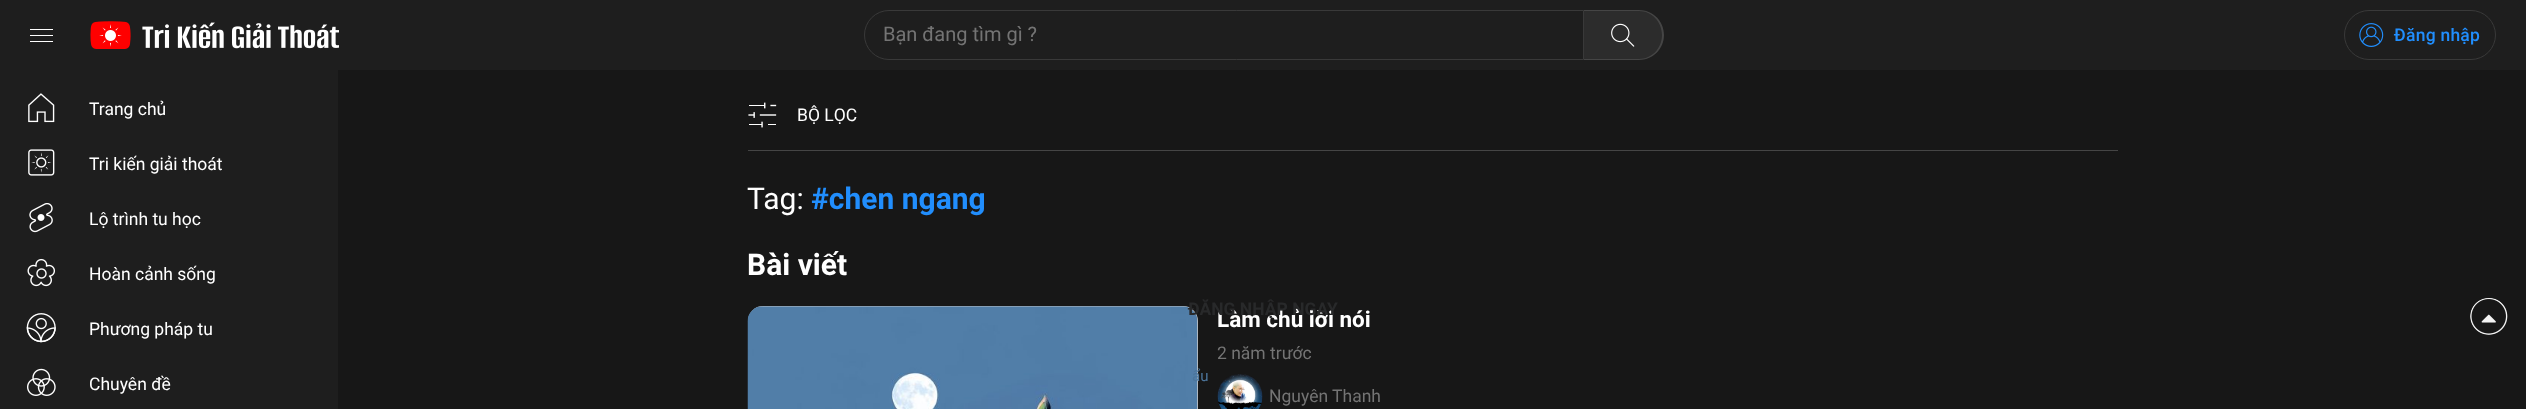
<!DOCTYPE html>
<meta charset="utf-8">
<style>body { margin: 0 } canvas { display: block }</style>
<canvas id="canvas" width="2526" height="409"></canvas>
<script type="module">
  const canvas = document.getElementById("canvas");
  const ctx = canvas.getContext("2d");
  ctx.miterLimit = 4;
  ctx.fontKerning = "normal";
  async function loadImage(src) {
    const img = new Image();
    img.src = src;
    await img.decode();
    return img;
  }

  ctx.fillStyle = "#1e1e1e";
  ctx.fillRect(0, 0, 2526, 409);
  ctx.fillStyle = "#ffffff";
  ctx.fillRect(30, 29, 23, 1);
  ctx.fillRect(30, 35, 23, 1);
  ctx.fillRect(30, 41, 23, 1);
  ctx.drawImage(await loadImage("img1.png"), 90, 21, 249, 28);
  ctx.beginPath();
  ctx.roundRect(864.5, 10.5, 719, 49, [24.5, 0, 0, 24.5]);
  ctx.strokeStyle = "#393939";
  ctx.stroke();
  ctx.font = "20px Roboto";
  ctx.fillStyle = "#747474";
  ctx.fillText("Bạn đang tìm gì ?", 883, 41);
  ctx.fillStyle = "#2c2c2c";
  ctx.beginPath();
  ctx.roundRect(1584, 10, 80, 50, [0, 25, 25, 0]);
  ctx.fill();
  ctx.fillStyle = "rgba(255, 255, 255, 0.12)";
  ctx.beginPath();
  ctx.moveTo(1584, 10);
  ctx.lineTo(1639, 10);
  ctx.bezierCurveTo(1653, 10, 1664, 21, 1664, 35);
  ctx.bezierCurveTo(1664, 49, 1653, 60, 1639, 60);
  ctx.lineTo(1584, 60);
  ctx.closePath();
  ctx.moveTo(1584, 11);
  ctx.lineTo(1639, 11);
  ctx.bezierCurveTo(1652, 11, 1662, 22, 1662, 35);
  ctx.bezierCurveTo(1662, 48, 1652, 59, 1639, 59);
  ctx.lineTo(1584, 59);
  ctx.closePath();
  ctx.fill("evenodd");
  ctx.drawImage(await loadImage("img2.png"), 1611, 23, 24, 24);
  ctx.beginPath();
  ctx.roundRect(2344.5, 10.5, 151, 49, 24.5);
  ctx.stroke();
  ctx.drawImage(await loadImage("img3.png"), 2359, 23, 25, 24);
  ctx.letterSpacing = "0.25px";
  ctx.font = "500 17.5px Roboto";
  ctx.fillStyle = "#218efd";
  ctx.fillText("Đăng nhập", 2394, 41);
  ctx.drawImage(await loadImage("img4.png"), 28, 93, 27, 30);
  ctx.letterSpacing = "0px";
  ctx.font = "17.5px Roboto";
  ctx.fillStyle = "#ffffff";
  ctx.fillText("Trang chủ", 89, 115);
  ctx.drawImage(await loadImage("img5.png"), 28, 149, 27, 27);
  ctx.fillText("Tri kiến giải thoát", 89, 170);
  ctx.drawImage(await loadImage("img6.png"), 29, 203, 24, 30);
  ctx.fillText("Lộ trình tu học", 89, 225);
  ctx.drawImage(await loadImage("img7.png"), 27, 258, 29, 29);
  ctx.fillText("Hoàn cảnh sống", 89, 280);
  ctx.drawImage(await loadImage("img8.png"), 26, 313, 30, 30);
  ctx.fillText("Phương pháp tu", 89, 335);
  ctx.drawImage(await loadImage("img9.png"), 27, 368, 29, 28);
  ctx.fillText("Chuyên đề", 89, 390);
  ctx.fillStyle = "#171717";
  ctx.fillRect(338, 70, 2188, 339);
  ctx.fillStyle = "#454545";
  ctx.fillRect(748, 150, 1370, 1);
  ctx.drawImage(await loadImage("img10.png"), 748, 102, 29, 26);
  ctx.fillStyle = "#ffffff";
  ctx.fillText("BỘ LỌC", 797, 121);
  ctx.font = "30px Roboto";
  ctx.fillText("Tag:", 747, 209);
  ctx.font = "bold 30px Roboto";
  ctx.fillStyle = "#218efd";
  ctx.fillText("#chen ngang", 811, 209);
  ctx.fillStyle = "#ffffff";
  ctx.fillText("Bài viết", 747, 275);
  ctx.fillStyle = "#cccccc";
  ctx.beginPath();
  ctx.roundRect(748, 306, 450, 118, 15);
  ctx.fill();
  ctx.drawImage(await loadImage("img11.png"), 747, 306, 451, 103);
  ctx.font = "bold 22.5px Roboto";
  ctx.fillStyle = "#ffffff";
  ctx.fillText("Làm chủ lời nói", 1217, 327);
  ctx.font = "17.5px Roboto";
  ctx.fillStyle = "#747474";
  ctx.fillText("2 năm trước", 1217, 359);
  ctx.drawImage(await loadImage("img12.png"), 1217, 374, 46, 35);
  ctx.fillText("Nguyên Thanh", 1269, 402);
  ctx.drawImage(await loadImage("img13.png"), 2470, 298, 38, 37);
  ctx.font = "bold 17.5px Roboto";
  ctx.fillStyle = "#28292a";
  ctx.fillText("ĐĂNG NHẬP NGAY", 1188, 315);
  ctx.font = "15px Roboto";
  ctx.fillStyle = "#4c759b";
  ctx.fillText("ẩu", 1192, 381);
</script>
